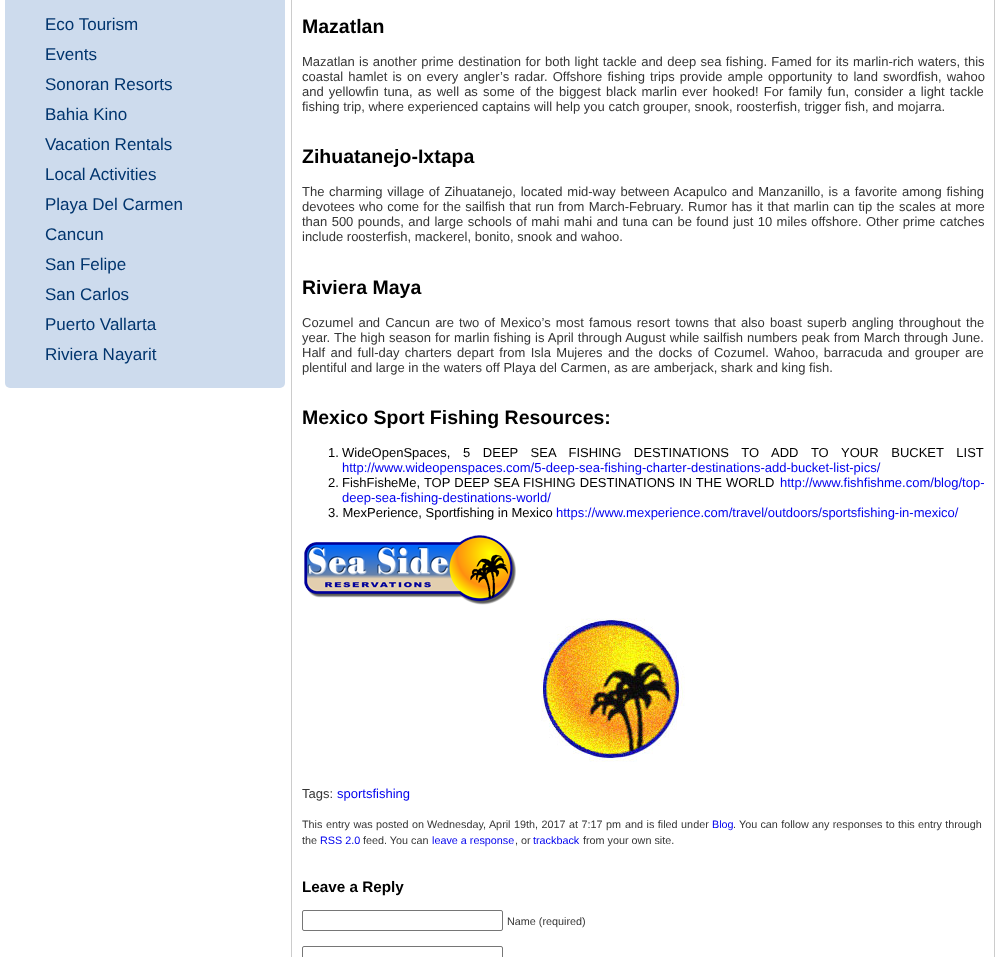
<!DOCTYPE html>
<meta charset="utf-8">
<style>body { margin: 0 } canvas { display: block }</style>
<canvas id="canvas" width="998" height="957"></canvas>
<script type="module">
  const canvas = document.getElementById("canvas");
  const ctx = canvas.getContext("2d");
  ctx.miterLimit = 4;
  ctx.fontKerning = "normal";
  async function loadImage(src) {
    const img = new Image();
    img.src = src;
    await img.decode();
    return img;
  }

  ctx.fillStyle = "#ffffff";
  ctx.fillRect(0, 0, 998, 957);
  ctx.fillStyle = "#cddbed";
  ctx.beginPath();
  ctx.roundRect(5, -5, 280, 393, 5);
  ctx.fill();
  ctx.font = "17px Liberation Sans";
  ctx.fillStyle = "#01356e";
  ctx.fillText("Eco Tourism", 45, 30);
  ctx.fillText("Events", 45, 60);
  ctx.fillText("Sonoran Resorts", 45, 90);
  ctx.fillText("Bahia Kino", 45, 120);
  ctx.fillText("Vacation Rentals", 45, 150);
  ctx.fillText("Local Activities", 45, 180);
  ctx.fillText("Playa Del Carmen", 45, 210);
  ctx.fillText("Cancun", 45, 240);
  ctx.fillText("San Felipe", 45, 270);
  ctx.fillText("San Carlos", 45, 300);
  ctx.fillText("Puerto Vallarta", 45, 330);
  ctx.fillText("Riviera Nayarit", 45, 360);
  ctx.fillStyle = "#cccccc";
  ctx.fillRect(994, 0, 1, 957);
  ctx.fillRect(291, 0, 1, 957);
  ctx.font = "bold 19.5px Liberation Sans";
  ctx.fillStyle = "#000000";
  ctx.fillText("Mazatlan", 302, 33);
  ctx.wordSpacing = "0.75px";
  ctx.font = "13px Liberation Sans";
  ctx.fillStyle = "#353535";
  ctx.fillText("Mazatlan is another prime destination for both light tackle and deep sea fishing. Famed for its marlin-rich waters, this", 302, 66);
  ctx.wordSpacing = "1.5px";
  ctx.fillText("coastal hamlet is on every angler’s radar. Offshore fishing trips provide ample opportunity to land swordfish, wahoo", 302, 81);
  ctx.fillText("and yellowfin tuna, as well as some of the biggest black marlin ever hooked! For family fun, consider a light tackle", 302, 96);
  ctx.wordSpacing = "0px";
  ctx.fillText("fishing trip, where experienced captains will help you catch grouper, snook, roosterfish, trigger fish, and mojarra.", 302, 111);
  ctx.font = "bold 19.5px Liberation Sans";
  ctx.fillStyle = "#000000";
  ctx.fillText("Zihuatanejo-Ixtapa", 302, 163);
  ctx.wordSpacing = "1.1px";
  ctx.font = "13px Liberation Sans";
  ctx.fillStyle = "#353535";
  ctx.fillText("The charming village of Zihuatanejo, located mid-way between Acapulco and Manzanillo, is a favorite among fishing", 302, 196);
  ctx.wordSpacing = "0.7px";
  ctx.fillText("devotees who come for the sailfish that run from March-February. Rumor has it that marlin can tip the scales at more", 302, 211);
  ctx.wordSpacing = "0.75px";
  ctx.fillText("than 500 pounds, and large schools of mahi mahi and tuna can be found just 10 miles offshore. Other prime catches", 302, 226);
  ctx.wordSpacing = "0px";
  ctx.fillText("include roosterfish, mackerel, bonito, snook and wahoo.", 302, 241);
  ctx.font = "bold 19.5px Liberation Sans";
  ctx.fillStyle = "#000000";
  ctx.fillText("Riviera Maya", 302, 294);
  ctx.wordSpacing = "1.5px";
  ctx.font = "13px Liberation Sans";
  ctx.fillStyle = "#353535";
  ctx.fillText("Cozumel and Cancun are two of Mexico’s most famous resort towns that also boast superb angling throughout the", 302, 327);
  ctx.wordSpacing = "0.4px";
  ctx.fillText("year. The high season for marlin fishing is April through August while sailfish numbers peak from March through June.", 302, 342);
  ctx.wordSpacing = "1.75px";
  ctx.fillText("Half and full-day charters depart from Isla Mujeres and the docks of Cozumel. Wahoo, barracuda and grouper are", 302, 357);
  ctx.wordSpacing = "0px";
  ctx.fillText("plentiful and large in the waters off Playa del Carmen, as are amberjack, shark and king fish.", 302, 372);
  ctx.font = "bold 19.5px Liberation Sans";
  ctx.fillStyle = "#000000";
  ctx.fillText("Mexico Sport Fishing Resources:", 302, 424);
  ctx.font = "13px Liberation Sans";
  ctx.fillText("1.", 328, 457);
  ctx.wordSpacing = "9px";
  ctx.fillText("WideOpenSpaces, 5 DEEP SEA FISHING DESTINATIONS TO ADD TO YOUR BUCKET LIST", 342, 457);
  ctx.wordSpacing = "0px";
  ctx.fillStyle = "#0000ee";
  ctx.fillText("http://www.wideopenspaces.com/5-deep-sea-fishing-charter-destinations-add-bucket-list-pics/", 342, 472);
  ctx.fillStyle = "#000000";
  ctx.fillText("2.", 328, 487);
  ctx.wordSpacing = "0.5px";
  ctx.fillText("FishFisheMe, TOP DEEP SEA FISHING DESTINATIONS IN THE WORLD", 342, 487);
  ctx.wordSpacing = "0px";
  ctx.fillStyle = "#0000ee";
  ctx.fillText("http://www.fishfishme.com/blog/top-", 780, 487);
  ctx.fillText("deep-sea-fishing-destinations-world/", 342, 502);
  ctx.fillStyle = "#000000";
  ctx.fillText("3. MexPerience, Sportfishing in Mexico", 328, 517);
  ctx.fillStyle = "#0000ee";
  ctx.fillText("https://www.mexperience.com/travel/outdoors/sportsfishing-in-mexico/", 556, 517);
  ctx.drawImage(await loadImage("img1.png"), 304, 535, 212, 70);
  ctx.drawImage(await loadImage("img2.png"), 541, 618, 144, 144);
  ctx.fillStyle = "#353535";
  ctx.fillText("Tags:", 302, 798);
  ctx.fillStyle = "#0000ee";
  ctx.fillText("sportsfishing", 337, 798);
  ctx.wordSpacing = "0.5px";
  ctx.font = "10.8px Liberation Sans";
  ctx.fillStyle = "#353535";
  ctx.fillText("This entry was posted", 302, 828);
  ctx.wordSpacing = "0px";
  ctx.fillText("on", 412, 828);
  ctx.wordSpacing = "0.5px";
  ctx.fillText("Wednesday, April 19th, 2017", 427, 828);
  ctx.fillText("at 7:17 pm", 569, 828);
  ctx.fillText("and is filed under", 625, 828);
  ctx.wordSpacing = "0px";
  ctx.fillStyle = "#0000ee";
  ctx.fillText("Blog", 712, 828);
  ctx.fillStyle = "#353535";
  ctx.fillText(".", 733, 828);
  ctx.wordSpacing = "0.25px";
  ctx.fillText("You can follow any responses to this entry through", 739, 828);
  ctx.wordSpacing = "0px";
  ctx.fillText("the", 302, 844);
  ctx.fillStyle = "#0000ee";
  ctx.fillText("RSS 2.0", 320, 844);
  ctx.fillStyle = "#353535";
  ctx.fillText("feed. You can", 363, 844);
  ctx.fillStyle = "#0000ee";
  ctx.fillText("leave a response", 432, 844);
  ctx.fillStyle = "#353535";
  ctx.fillText(", or", 515, 844);
  ctx.fillStyle = "#0000ee";
  ctx.fillText("trackback", 533, 844);
  ctx.fillStyle = "#353535";
  ctx.fillText("from your own site.", 583, 844);
  ctx.font = "bold 15.25px Liberation Sans";
  ctx.fillStyle = "#000000";
  ctx.fillText("Leave a Reply", 302, 892);
  ctx.beginPath();
  ctx.roundRect(302.5, 910.5, 200, 20, 1.5);
  ctx.strokeStyle = "#767676";
  ctx.stroke();
  ctx.font = "10.8px Liberation Sans";
  ctx.fillStyle = "#353535";
  ctx.fillText("Name (required)", 507, 925);
  ctx.beginPath();
  ctx.roundRect(302.5, 946.5, 200, 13, 1.5);
  ctx.stroke();
</script>
